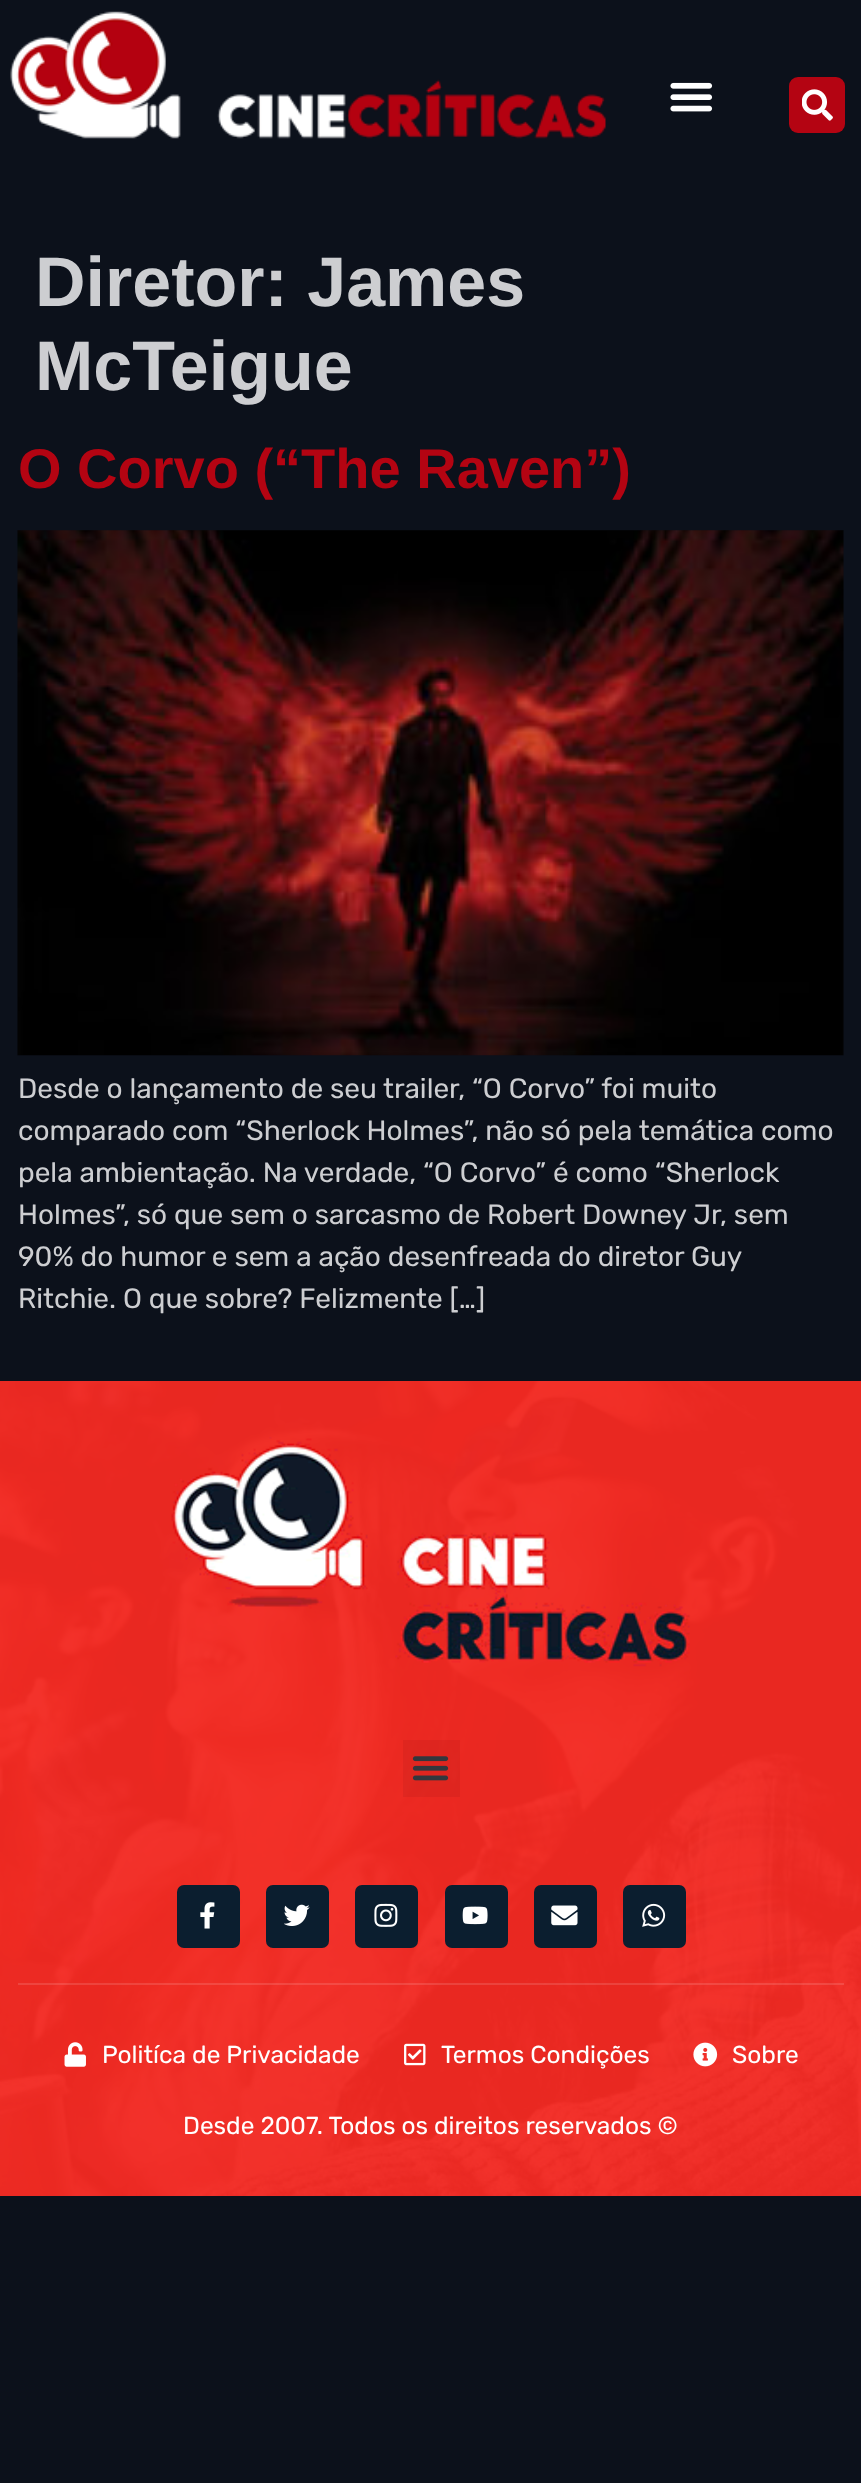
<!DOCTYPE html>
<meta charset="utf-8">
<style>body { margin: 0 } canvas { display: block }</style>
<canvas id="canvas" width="861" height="2483"></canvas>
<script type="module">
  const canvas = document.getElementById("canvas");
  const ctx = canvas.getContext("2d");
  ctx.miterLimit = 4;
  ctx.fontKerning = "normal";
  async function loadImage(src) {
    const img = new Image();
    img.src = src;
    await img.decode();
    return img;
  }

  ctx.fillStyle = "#0c111b";
  ctx.fillRect(0, 0, 861, 2483);
  ctx.drawImage(await loadImage("img1.png"), 10, 11, 596, 128);
  ctx.drawImage(await loadImage("img2.png"), 670, 82, 43, 30);
  ctx.fillStyle = "#b40412";
  ctx.beginPath();
  ctx.roundRect(789, 77, 56, 56, 9);
  ctx.fill();
  ctx.drawImage(await loadImage("img3.png"), 802, 89, 31, 32);
  ctx.font = "bold 70px Liberation Sans";
  ctx.fillStyle = "#cdced1";
  ctx.fillText("Diretor: James", 35, 306);
  ctx.fillText("McTeigue", 35, 390);
  ctx.font = "bold 56px Liberation Sans";
  ctx.fillStyle = "#b40412";
  ctx.fillText("O Corvo (“The Raven”)", 18, 488);
  ctx.drawImage(await loadImage("img4.png"), 17, 530, 827, 526);
  ctx.font = "28px Rubik";
  ctx.fillStyle = "#cdced1";
  ctx.fillText("Desde o lançamento de seu trailer, “O Corvo” foi muito", 18, 1098);
  ctx.fillText("comparado com “Sherlock Holmes”, não só pela temática como", 18, 1140);
  ctx.fillText("pela ambientação. Na verdade, “O Corvo” é como “Sherlock", 18, 1182);
  ctx.fillText("Holmes”, só que sem o sarcasmo de Robert Downey Jr, sem", 18, 1224);
  ctx.fillText("90% do humor e sem a ação desenfreada do diretor Guy", 18, 1266);
  ctx.fillText("Ritchie. O que sobre? Felizmente […]", 18, 1308);
  ctx.fillStyle = "#f32a23";
  ctx.fillRect(0, 1381, 861, 815);
  ctx.drawImage(await loadImage("img5.png"), 0, 1381, 861, 815);
  ctx.drawImage(await loadImage("img6.png"), 171, 1437, 519, 230);
  ctx.fillStyle = "rgba(0, 0, 0, 0.05)";
  ctx.fillRect(403, 1740, 57, 57);
  ctx.drawImage(await loadImage("img7.png"), 412, 1756, 37, 25);
  ctx.fillStyle = "#0b1e2f";
  ctx.beginPath();
  ctx.roundRect(177, 1885, 63, 63, 7);
  ctx.fill();
  ctx.drawImage(await loadImage("img8.png"), 200, 1902, 15, 27);
  ctx.beginPath();
  ctx.roundRect(266, 1885, 63, 63, 7);
  ctx.fill();
  ctx.drawImage(await loadImage("img9.png"), 284, 1904, 26, 22);
  ctx.beginPath();
  ctx.roundRect(355, 1885, 63, 63, 7);
  ctx.fill();
  ctx.drawImage(await loadImage("img10.png"), 374, 1903, 24, 24);
  ctx.beginPath();
  ctx.roundRect(445, 1885, 63, 63, 7);
  ctx.fill();
  ctx.drawImage(await loadImage("img11.png"), 462, 1906, 26, 19);
  ctx.beginPath();
  ctx.roundRect(534, 1885, 63, 63, 7);
  ctx.fill();
  ctx.drawImage(await loadImage("img12.png"), 551, 1905, 27, 21);
  ctx.beginPath();
  ctx.roundRect(623, 1885, 63, 63, 7);
  ctx.fill();
  ctx.drawImage(await loadImage("img13.png"), 642, 1903, 24, 24);
  ctx.fillStyle = "rgba(255, 255, 255, 0.13)";
  ctx.fillRect(18, 1983, 826, 2);
  ctx.drawImage(await loadImage("img14.png"), 64, 2042, 22, 25);
  ctx.font = "24.5px Rubik";
  ctx.fillStyle = "#ffffff";
  ctx.fillText("Politíca de Privacidade", 102, 2063);
  ctx.drawImage(await loadImage("img15.png"), 404, 2043, 22, 23);
  ctx.fillText("Termos Condições", 441, 2063);
  ctx.drawImage(await loadImage("img16.png"), 693, 2042, 25, 25);
  ctx.fillText("Sobre", 732, 2063);
  ctx.fillText("Desde 2007. Todos os direitos reservados ©", 183, 2134);
</script>
